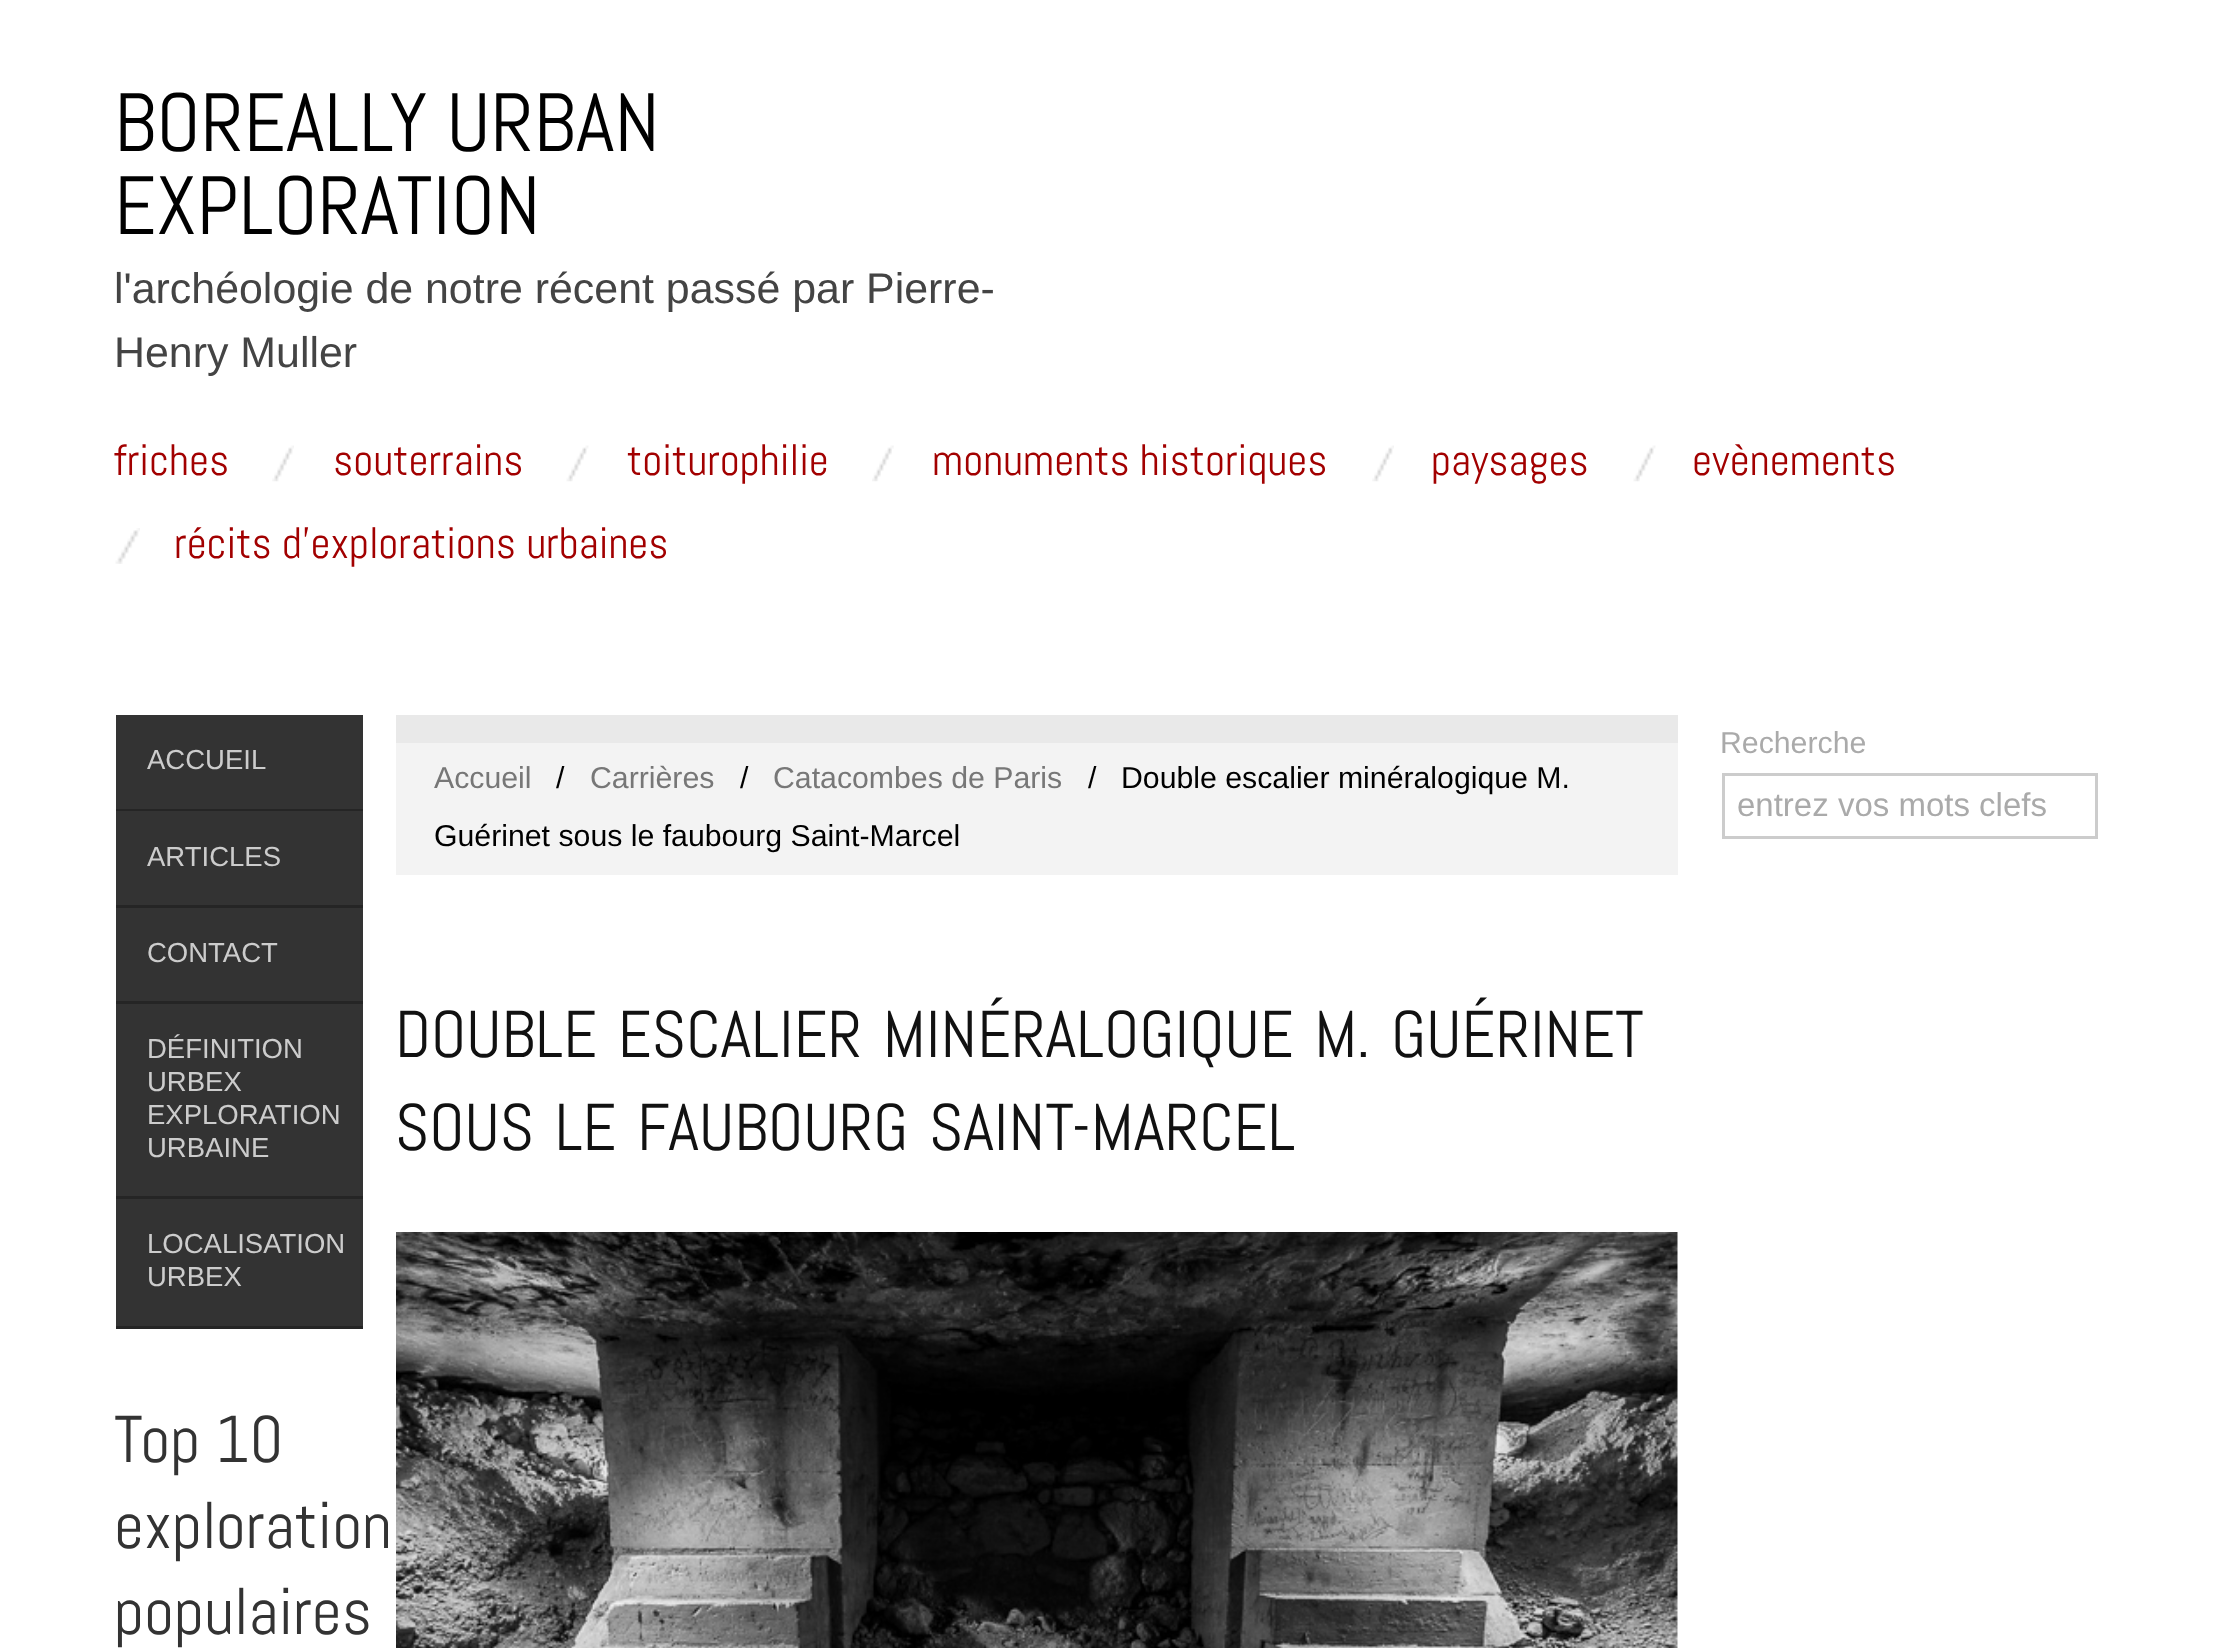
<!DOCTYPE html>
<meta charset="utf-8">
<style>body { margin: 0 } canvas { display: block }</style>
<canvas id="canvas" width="2228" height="1648"></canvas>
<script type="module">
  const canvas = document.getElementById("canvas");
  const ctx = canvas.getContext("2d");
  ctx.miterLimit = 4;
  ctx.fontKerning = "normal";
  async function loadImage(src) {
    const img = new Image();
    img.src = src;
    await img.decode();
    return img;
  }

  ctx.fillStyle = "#ffffff";
  ctx.fillRect(0, 0, 2228, 1648);
  ctx.font = "82.5px Abel";
  ctx.fillStyle = "#000000";
  ctx.fillText("BOREALLY URBAN", 114, 151);
  ctx.fillText("EXPLORATION", 114, 234);
  ctx.font = "42.9px Liberation Sans";
  ctx.fillStyle = "#444444";
  ctx.fillText("l'archéologie de notre récent passé par Pierre-", 114, 303);
  ctx.fillText("Henry Muller", 114, 367);
  ctx.font = "44px Abel";
  ctx.fillStyle = "#a20000";
  ctx.fillText("friches", 114, 475);
  ctx.drawImage(await loadImage("img1.png"), 272, 445, 22, 37);
  ctx.fillText("souterrains", 333, 475);
  ctx.drawImage(await loadImage("img2.png"), 566, 445, 23, 37);
  ctx.fillText("toiturophilie", 627, 475);
  ctx.drawImage(await loadImage("img3.png"), 872, 445, 22, 37);
  ctx.fillText("monuments historiques", 932, 475);
  ctx.drawImage(await loadImage("img4.png"), 1372, 445, 22, 37);
  ctx.fillText("paysages", 1431, 475);
  ctx.drawImage(await loadImage("img2.png"), 1633, 445, 23, 37);
  ctx.fillText("evènements", 1692, 475);
  ctx.drawImage(await loadImage("img5.png"), 115, 528, 25, 36);
  ctx.fillText("récits d’explorations urbaines", 174, 558);
  ctx.fillStyle = "#333333";
  ctx.fillRect(116, 715, 247, 611);
  ctx.fillStyle = "#252525";
  ctx.fillRect(116, 809, 247, 2);
  ctx.font = "27.5px Liberation Sans";
  ctx.fillStyle = "#cccccc";
  ctx.fillText("ACCUEIL", 147, 769);
  ctx.fillStyle = "#252525";
  ctx.fillRect(116, 905, 247, 3);
  ctx.fillStyle = "#cccccc";
  ctx.fillText("ARTICLES", 147, 866);
  ctx.fillStyle = "#252525";
  ctx.fillRect(116, 1001, 247, 3);
  ctx.fillStyle = "#cccccc";
  ctx.fillText("CONTACT", 147, 962);
  ctx.fillStyle = "#252525";
  ctx.fillRect(116, 1196, 247, 3);
  ctx.fillStyle = "#cccccc";
  ctx.fillText("DÉFINITION", 147, 1058);
  ctx.fillText("URBEX", 147, 1091);
  ctx.fillText("EXPLORATION", 147, 1124);
  ctx.fillText("URBAINE", 147, 1157);
  ctx.fillStyle = "#252525";
  ctx.fillRect(116, 1326, 247, 3);
  ctx.fillStyle = "#cccccc";
  ctx.fillText("LOCALISATION", 147, 1253);
  ctx.fillText("URBEX", 147, 1286);
  ctx.font = "66px Abel";
  ctx.fillStyle = "#333333";
  ctx.fillText("Top 10", 114, 1462);
  ctx.fillText("exploration", 114, 1548);
  ctx.fillText("populaires", 114, 1634);
  ctx.fillStyle = "#f3f3f3";
  ctx.fillRect(396, 743, 1282, 132);
  ctx.fillStyle = "#e9e9e9";
  ctx.fillRect(396, 715, 1282, 28);
  ctx.font = "30.25px Liberation Sans";
  ctx.fillStyle = "#777777";
  ctx.fillText("Accueil", 434, 788);
  ctx.fillStyle = "#000000";
  ctx.fillText("/", 556, 788);
  ctx.fillStyle = "#777777";
  ctx.fillText("Carrières", 590, 788);
  ctx.fillStyle = "#000000";
  ctx.fillText("/", 740, 788);
  ctx.fillStyle = "#777777";
  ctx.fillText("Catacombes de Paris", 773, 788);
  ctx.fillStyle = "#000000";
  ctx.fillText("/", 1088, 788);
  ctx.fillText("Double escalier minéralogique M.", 1121, 788);
  ctx.fillText("Guérinet sous le faubourg Saint-Marcel", 434, 846);
  ctx.wordSpacing = "5.5px";
  ctx.font = "66px Abel";
  ctx.fillStyle = "#111111";
  ctx.fillText("DOUBLE ESCALIER MINÉRALOGIQUE M. GUÉRINET", 395, 1057);
  ctx.fillText("SOUS LE FAUBOURG SAINT-MARCEL", 395, 1150);
  ctx.drawImage(await loadImage("img6.png"), 396, 1232, 1282, 416);
  ctx.wordSpacing = "0px";
  ctx.font = "30.25px Liberation Sans";
  ctx.fillStyle = "#aaaaaa";
  ctx.fillText("Recherche", 1720, 753);
  ctx.strokeStyle = "#cccccc";
  ctx.lineWidth = 3;
  ctx.strokeRect(1723.5, 774.5, 373, 63);
  ctx.font = "33px Liberation Sans";
  ctx.fillText("entrez vos mots clefs", 1737, 816);
</script>
